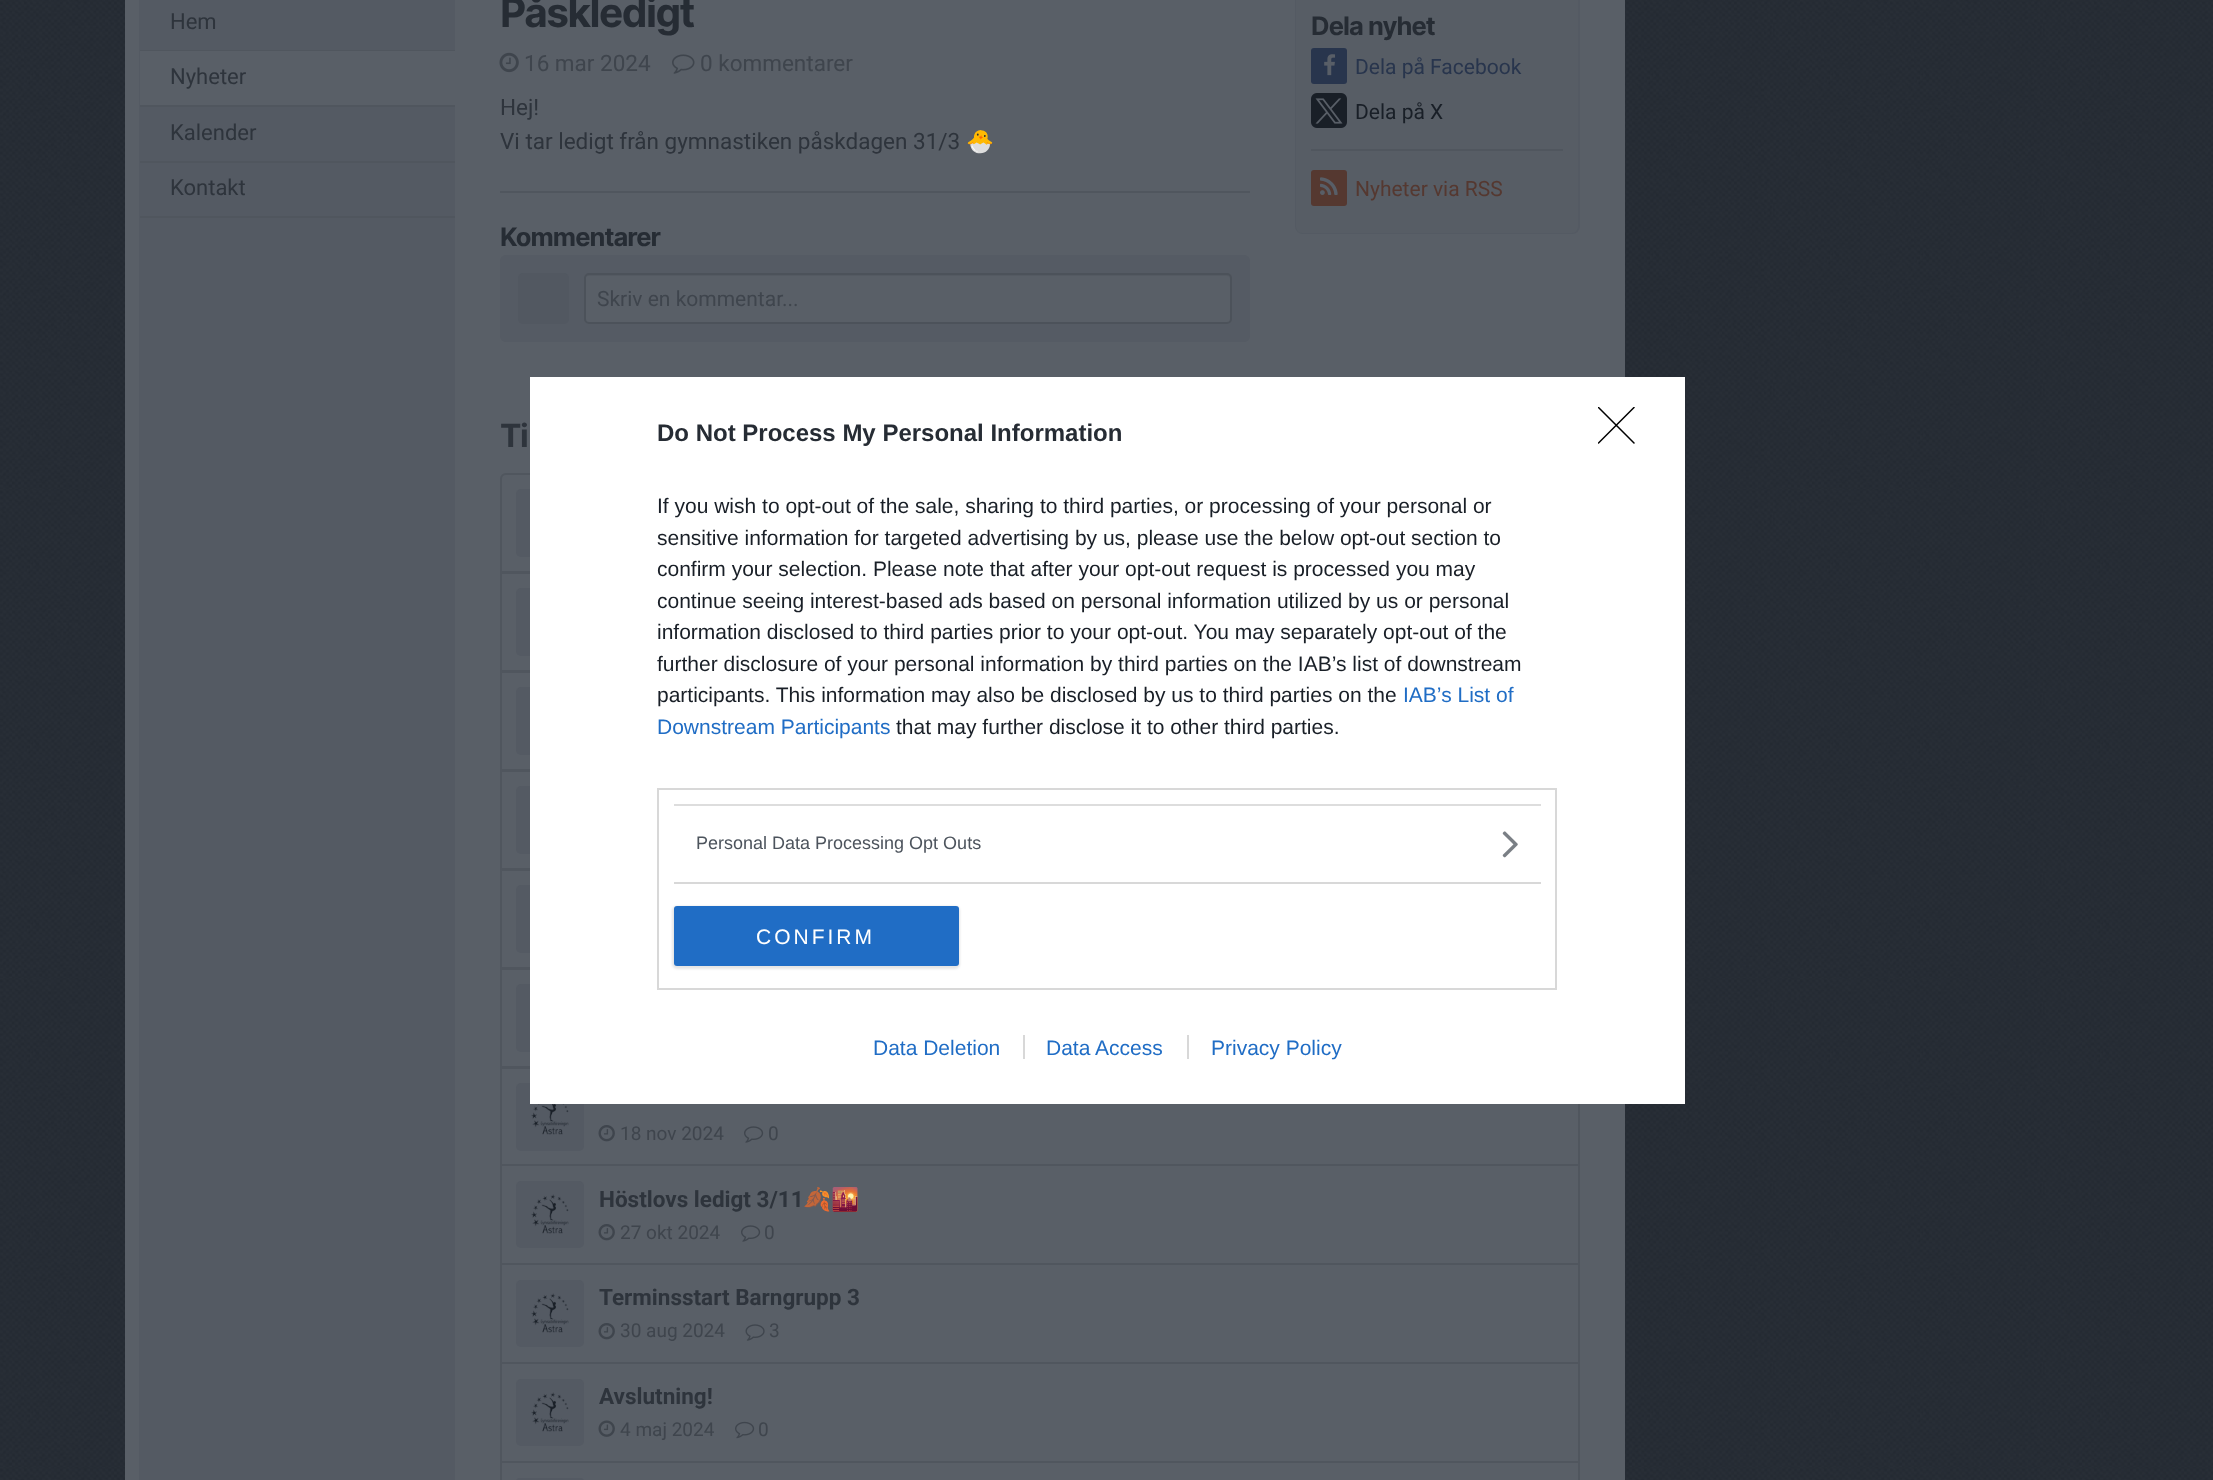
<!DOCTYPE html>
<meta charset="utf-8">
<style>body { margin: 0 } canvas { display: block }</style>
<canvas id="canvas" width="2213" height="1480"></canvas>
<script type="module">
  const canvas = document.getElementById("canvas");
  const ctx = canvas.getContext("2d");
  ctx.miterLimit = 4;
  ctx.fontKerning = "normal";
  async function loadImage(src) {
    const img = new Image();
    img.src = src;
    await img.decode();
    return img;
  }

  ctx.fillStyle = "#ffffff";
  ctx.fillRect(0, 0, 2213, 1480);
  ctx.drawImage(await loadImage("img1.png"), 0, 0, 2213, 1480);
  ctx.fillStyle = "#595f67";
  ctx.fillRect(125, 0, 1500, 1480);
  ctx.fillStyle = "#545a63";
  ctx.fillRect(139, 0, 316, 1480);
  ctx.fillStyle = "#50565e";
  ctx.fillRect(140, 50, 315, 1);
  ctx.font = "22px Roboto";
  ctx.fillStyle = "#2e343c";
  ctx.fillText("Hem", 170, 29);
  ctx.fillStyle = "#595f67";
  ctx.fillRect(140, 51, 315, 54);
  ctx.fillStyle = "#50565e";
  ctx.fillRect(140, 105, 315, 2);
  ctx.fillStyle = "#2e343c";
  ctx.fillText("Nyheter", 170, 84);
  ctx.fillStyle = "#50565e";
  ctx.fillRect(140, 161, 315, 2);
  ctx.fillStyle = "#2e343c";
  ctx.fillText("Kalender", 170, 140);
  ctx.fillStyle = "#50565e";
  ctx.fillRect(140, 216, 315, 2);
  ctx.fillStyle = "#2e343c";
  ctx.fillText("Kontakt", 170, 195);
  ctx.letterSpacing = "-1.5px";
  ctx.font = "bold 40.5px Inter";
  ctx.fillStyle = "#262c34";
  ctx.fillText("Påskledigt", 500, 27);
  ctx.drawImage(await loadImage("img2.png"), 499, 52, 20, 21);
  ctx.letterSpacing = "0px";
  ctx.font = "22.5px Roboto";
  ctx.fillStyle = "#3f454d";
  ctx.fillText("16 mar 2024", 524, 71);
  ctx.drawImage(await loadImage("img3.png"), 672, 54, 23, 20);
  ctx.fillText("0 kommentarer", 700, 71);
  ctx.fillStyle = "#2e343c";
  ctx.fillText("Hej!", 500, 115);
  ctx.fillText("Vi tar ledigt från gymnastiken påskdagen 31/3", 500, 149);
  ctx.font = "22.5px Noto Color Emoji";
  ctx.fillText("🐣", 966, 149);
  ctx.fillStyle = "#50565e";
  ctx.fillRect(500, 191, 750, 2);
  ctx.letterSpacing = "-0.9px";
  ctx.font = "bold 25.5px Inter";
  ctx.fillStyle = "#262c34";
  ctx.fillText("Kommentarer", 500, 246);
  ctx.fillStyle = "#555b64";
  ctx.beginPath();
  ctx.roundRect(500, 255, 750, 87, 6);
  ctx.fill();
  ctx.fillStyle = "#525861";
  ctx.beginPath();
  ctx.roundRect(518, 273, 51, 51, 5);
  ctx.fill();
  ctx.fillStyle = "#595f67";
  ctx.beginPath();
  ctx.roundRect(584, 273, 648, 51, 5);
  ctx.fill();
  ctx.fillStyle = "#545a62";
  ctx.beginPath();
  ctx.moveTo(588, 276);
  ctx.lineTo(1227, 276);
  ctx.bezierCurveTo(1229, 276, 1230, 277, 1230, 279);
  ctx.lineTo(1230, 278);
  ctx.bezierCurveTo(1230, 276, 1229, 275, 1227, 275);
  ctx.lineTo(588, 275);
  ctx.bezierCurveTo(586, 275, 585, 276, 585, 278);
  ctx.lineTo(585, 279);
  ctx.bezierCurveTo(585, 277, 586, 276, 588, 276);
  ctx.closePath();
  ctx.fill();
  ctx.beginPath();
  ctx.roundRect(585, 274, 646, 49, 4);
  ctx.strokeStyle = "#4c525a";
  ctx.lineWidth = 2;
  ctx.stroke();
  ctx.letterSpacing = "0px";
  ctx.font = "21px Roboto";
  ctx.fillStyle = "#3f454d";
  ctx.fillText("Skriv en kommentar...", 597, 306);
  ctx.beginPath();
  ctx.roundRect(1296, -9, 283, 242, 7);
  ctx.strokeStyle = "#545a63";
  ctx.stroke();
  ctx.fillStyle = "#575d65";
  ctx.beginPath();
  ctx.roundRect(1296, -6, 282, 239, 6);
  ctx.fill();
  ctx.letterSpacing = "-0.9px";
  ctx.font = "bold 25.5px Inter";
  ctx.fillStyle = "#262c34";
  ctx.fillText("Dela nyhet", 1311, 35);
  ctx.fillStyle = "#28354d";
  ctx.beginPath();
  ctx.roundRect(1311, 48, 36, 36, 3);
  ctx.fill();
  ctx.drawImage(await loadImage("img4.png"), 1324, 54, 12, 22);
  ctx.letterSpacing = "0px";
  ctx.font = "21px Roboto";
  ctx.fillText("Dela på Facebook", 1355, 74);
  ctx.drawImage(await loadImage("img5.png"), 1311, 93, 36, 35);
  ctx.fillStyle = "#191f27";
  ctx.fillText("Dela på X", 1355, 119);
  ctx.fillStyle = "#50565e";
  ctx.fillRect(1311, 149, 252, 2);
  ctx.fillStyle = "#553830";
  ctx.beginPath();
  ctx.roundRect(1311, 170, 36, 36, 3);
  ctx.fill();
  ctx.drawImage(await loadImage("img6.png"), 1320, 177, 18, 18);
  ctx.fillText("Nyheter via RSS", 1355, 196);
  ctx.letterSpacing = "-1.5px";
  ctx.font = "bold 32px Inter";
  ctx.fillStyle = "#2e343c";
  ctx.fillText("Ti", 500, 447);
  ctx.beginPath();
  ctx.roundRect(501, 474, 1078, 98, [5, 5, 0, 0]);
  ctx.strokeStyle = "#50565e";
  ctx.stroke();
  ctx.fillStyle = "#545a63";
  ctx.beginPath();
  ctx.roundRect(516, 489, 68, 68, 5);
  ctx.fill();
  ctx.strokeRect(501, 573, 1078, 98);
  ctx.beginPath();
  ctx.roundRect(516, 588, 68, 68, 5);
  ctx.fill();
  ctx.strokeRect(501, 672, 1078, 98);
  ctx.beginPath();
  ctx.roundRect(516, 687, 68, 68, 5);
  ctx.fill();
  ctx.strokeRect(501, 771, 1078, 98);
  ctx.beginPath();
  ctx.roundRect(516, 786, 68, 68, 5);
  ctx.fill();
  ctx.strokeRect(501, 870, 1078, 98);
  ctx.beginPath();
  ctx.roundRect(516, 885, 68, 68, 5);
  ctx.fill();
  ctx.strokeRect(501, 969, 1078, 98);
  ctx.beginPath();
  ctx.roundRect(516, 984, 68, 68, 5);
  ctx.fill();
  ctx.strokeRect(501, 1068, 1078, 97);
  ctx.beginPath();
  ctx.roundRect(516, 1083, 68, 68, 5);
  ctx.fill();
  ctx.drawImage(await loadImage("img7.png"), 531, 1104, 38, 31);
  ctx.drawImage(await loadImage("img8.png"), 598, 1125, 17, 17);
  ctx.letterSpacing = "0px";
  ctx.font = "19px Roboto";
  ctx.fillStyle = "#3f454d";
  ctx.fillText("18 nov 2024", 620, 1140);
  ctx.drawImage(await loadImage("img9.png"), 744, 1126, 20, 17);
  ctx.fillText("0", 768, 1140);
  ctx.strokeRect(501, 1165, 1078, 99);
  ctx.fillStyle = "#545a63";
  ctx.beginPath();
  ctx.roundRect(516, 1181, 68, 67, 5);
  ctx.fill();
  ctx.drawImage(await loadImage("img10.png"), 531, 1194, 38, 40);
  ctx.font = "bold 22.5px Roboto";
  ctx.fillStyle = "#2e343c";
  ctx.fillText("Höstlovs ledigt 3/11", 599, 1207);
  ctx.font = "bold 22.5px Noto Color Emoji";
  ctx.fillText("🍂🌇", 803, 1207);
  ctx.drawImage(await loadImage("img8.png"), 598, 1224, 17, 17);
  ctx.font = "19px Roboto";
  ctx.fillStyle = "#3f454d";
  ctx.fillText("27 okt 2024", 620, 1239);
  ctx.drawImage(await loadImage("img9.png"), 741, 1225, 20, 17);
  ctx.fillText("0", 764, 1239);
  ctx.strokeRect(501, 1264, 1078, 99);
  ctx.fillStyle = "#545a63";
  ctx.beginPath();
  ctx.roundRect(516, 1280, 68, 67, 5);
  ctx.fill();
  ctx.drawImage(await loadImage("img10.png"), 531, 1293, 38, 40);
  ctx.font = "bold 22.5px Roboto";
  ctx.fillStyle = "#2e343c";
  ctx.fillText("Terminsstart Barngrupp 3", 599, 1305);
  ctx.drawImage(await loadImage("img8.png"), 598, 1323, 17, 17);
  ctx.font = "19px Roboto";
  ctx.fillStyle = "#3f454d";
  ctx.fillText("30 aug 2024", 620, 1337);
  ctx.drawImage(await loadImage("img11.png"), 745, 1324, 20, 17);
  ctx.fillText("3", 769, 1337);
  ctx.strokeRect(501, 1363, 1078, 99);
  ctx.fillStyle = "#545a63";
  ctx.beginPath();
  ctx.roundRect(516, 1379, 68, 67, 5);
  ctx.fill();
  ctx.drawImage(await loadImage("img10.png"), 531, 1392, 38, 40);
  ctx.font = "bold 22.5px Roboto";
  ctx.fillStyle = "#2e343c";
  ctx.fillText("Avslutning!", 599, 1404);
  ctx.drawImage(await loadImage("img12.png"), 598, 1420, 17, 17);
  ctx.font = "19px Roboto";
  ctx.fillStyle = "#3f454d";
  ctx.fillText("4 maj 2024", 620, 1436);
  ctx.drawImage(await loadImage("img13.png"), 735, 1421, 20, 18);
  ctx.fillText("0", 758, 1436);
  ctx.strokeRect(501, 1462, 1078, 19);
  ctx.fillStyle = "#545a63";
  ctx.beginPath();
  ctx.roundRect(516, 1478, 68, 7, 5);
  ctx.fill();
  ctx.fillStyle = "#ffffff";
  ctx.fillRect(530, 377, 1155, 727);
  ctx.font = "bold 24px Liberation Sans";
  ctx.fillStyle = "#262c34";
  ctx.fillText("Do Not Process My Personal Information", 657, 441);
  ctx.font = "21px Liberation Sans";
  ctx.fillStyle = "#191f27";
  ctx.fillText("If you wish to opt-out of the sale, sharing to third parties, or processing of your personal or", 657, 513);
  ctx.fillText("sensitive information for targeted advertising by us, please use the below opt-out section to", 657, 545);
  ctx.fillText("confirm your selection. Please note that after your opt-out request is processed you may", 657, 576);
  ctx.fillText("continue seeing interest-based ads based on personal information utilized by us or personal", 657, 608);
  ctx.fillText("information disclosed to third parties prior to your opt-out. You may separately opt-out of the", 657, 639);
  ctx.fillText("further disclosure of your personal information by third parties on the IAB’s list of downstream", 657, 671);
  ctx.fillText("participants. This information may also be disclosed by us to third parties on the", 657, 702);
  ctx.fillStyle = "#206dc5";
  ctx.fillText("IAB’s List of", 1403, 702);
  ctx.fillText("Downstream Participants", 657, 734);
  ctx.fillStyle = "#191f27";
  ctx.fillText("that may further disclose it to other third parties.", 896, 734);
  ctx.strokeStyle = "#d8d8d8";
  ctx.strokeRect(658, 789, 898, 200);
  ctx.fillStyle = "#dddddd";
  ctx.fillRect(674, 804, 867, 2);
  ctx.fillStyle = "#d8d8d8";
  ctx.fillRect(674, 882, 867, 2);
  ctx.font = "18px Liberation Sans";
  ctx.fillStyle = "#4d545d";
  ctx.fillText("Personal Data Processing Opt Outs", 696, 849);
  ctx.drawImage(await loadImage("img14.png"), 1502, 831, 16, 27);
  ctx.fillStyle = "rgba(0, 0, 0, 0.1)";
  ctx.filter = "blur(1px)";
  ctx.beginPath();
  ctx.roundRect(672, 906, 288, 63, 5);
  ctx.fill();
  ctx.filter = "none";
  ctx.fillStyle = "#206dc5";
  ctx.beginPath();
  ctx.roundRect(674, 906, 285, 60, 3);
  ctx.fill();
  ctx.letterSpacing = "3px";
  ctx.font = "21px Liberation Sans";
  ctx.fillStyle = "#ffffff";
  ctx.fillText("CONFIRM", 756, 944);
  ctx.save();
  ctx.beginPath();
  ctx.rect(1598, 407, 37, 37);
  ctx.clip();
  ctx.beginPath();
  ctx.moveTo(1598.5, 407.5);
  ctx.lineTo(1634, 443);
  ctx.moveTo(1634, 407.5);
  ctx.lineTo(1598.5, 443);
  ctx.strokeStyle = "#000000";
  ctx.lineWidth = 1.5;
  ctx.lineCap = "round";
  ctx.lineJoin = "round";
  ctx.stroke();
  ctx.restore();
  ctx.letterSpacing = "0px";
  ctx.fillStyle = "#206dc5";
  ctx.fillText("Data Deletion", 873, 1055);
  ctx.fillText("Data Access", 1046, 1055);
  ctx.fillStyle = "#d8d8d8";
  ctx.fillRect(1023, 1035, 2, 24);
  ctx.fillStyle = "#206dc5";
  ctx.fillText("Privacy Policy", 1211, 1055);
  ctx.fillStyle = "#d8d8d8";
  ctx.fillRect(1187, 1035, 2, 24);
</script>
